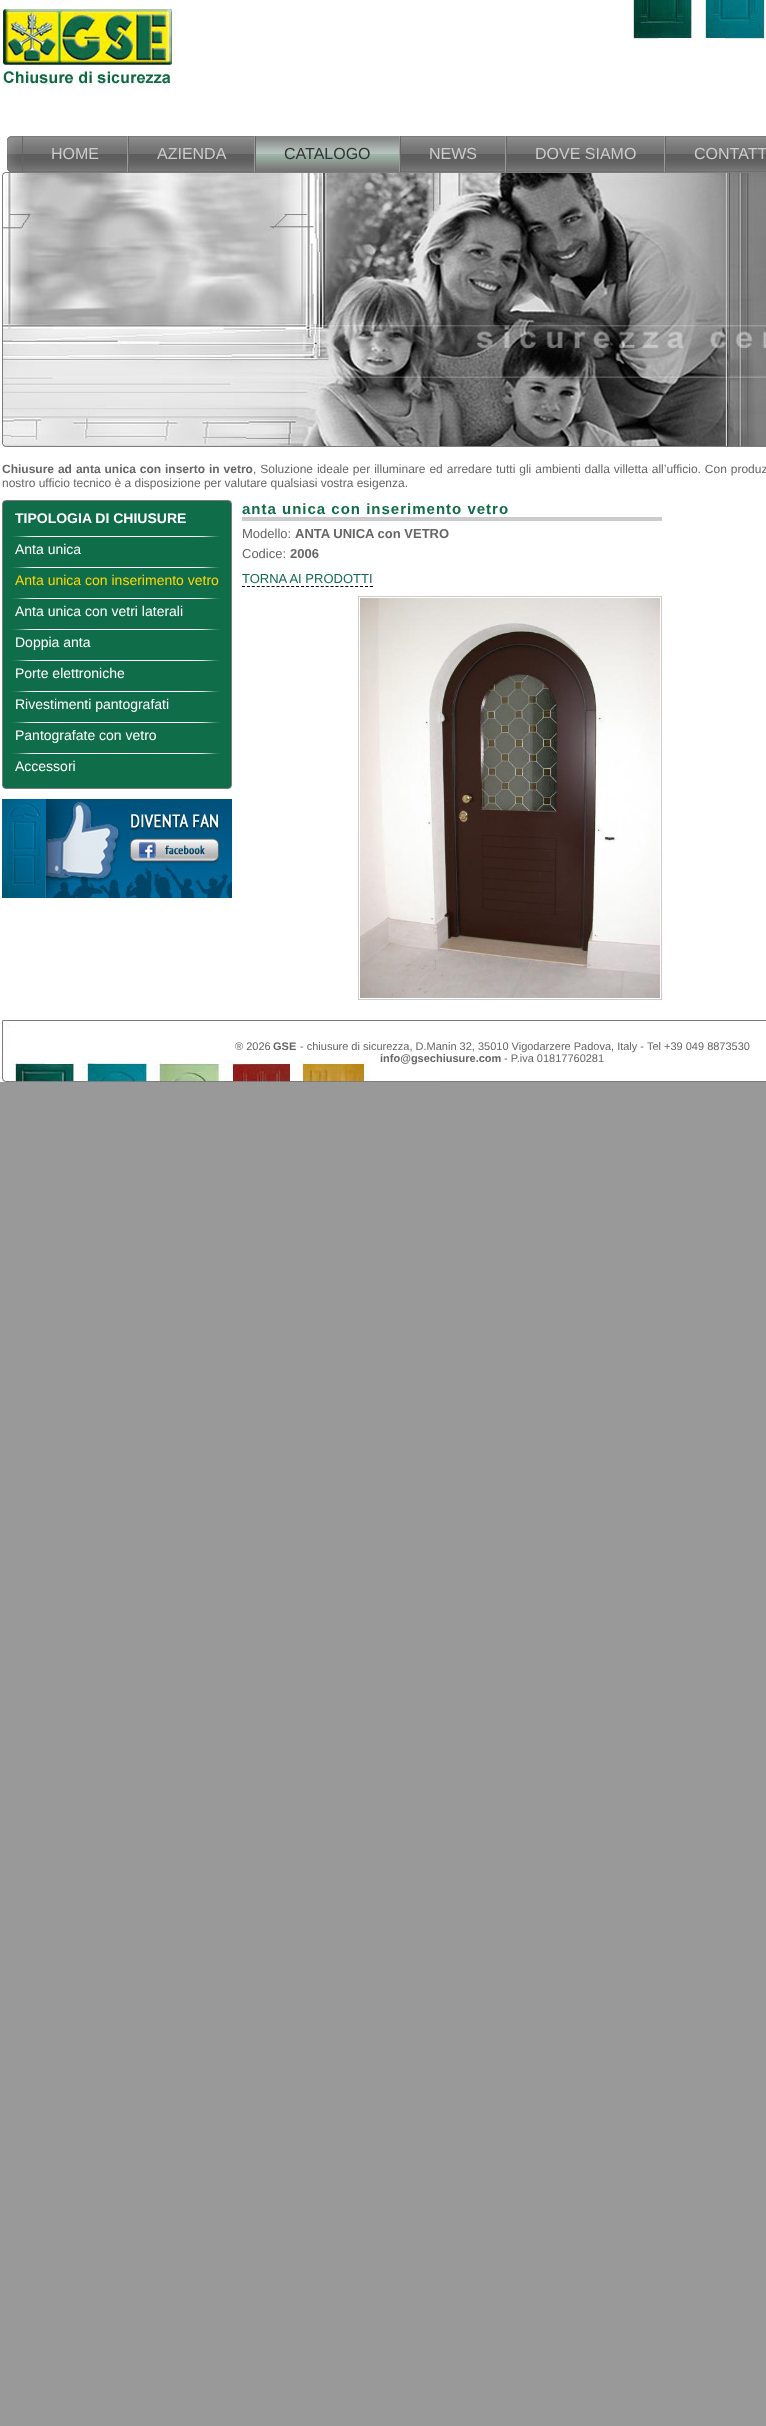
<!DOCTYPE html>
<meta charset="utf-8">
<style>body { margin: 0 } canvas { display: block }</style>
<canvas id="canvas" width="766" height="2426"></canvas>
<script type="module">
  const canvas = document.getElementById("canvas");
  const ctx = canvas.getContext("2d");
  ctx.miterLimit = 4;
  ctx.fontKerning = "normal";
  async function loadImage(src) {
    const img = new Image();
    img.src = src;
    await img.decode();
    return img;
  }

  ctx.fillStyle = "#999999";
  ctx.fillRect(0, 0, 766, 2426);
  ctx.fillStyle = "#ffffff";
  ctx.fillRect(0, 0, 766, 1082);
  ctx.drawImage(await loadImage("img1.png"), 630, 0, 136, 40);
  ctx.drawImage(await loadImage("img2.png"), 2, 8, 176, 80);
  ctx.drawImage(await loadImage("img3.png"), 7, 136, 15, 36);
  ctx.drawImage(await loadImage("img4.png"), 23, 136, 104, 36);
  ctx.fillStyle = "#999999";
  ctx.fillRect(127, 136, 1, 36);
  ctx.fillStyle = "#666666";
  ctx.fillRect(22, 136, 1, 36);
  ctx.font = "16px Liberation Sans";
  ctx.fillStyle = "#cccccc";
  ctx.fillText("HOME", 51, 159);
  ctx.drawImage(await loadImage("img5.png"), 129, 136, 125, 36);
  ctx.fillStyle = "#999999";
  ctx.fillRect(254, 136, 1, 36);
  ctx.fillStyle = "#666666";
  ctx.fillRect(128, 136, 1, 36);
  ctx.fillStyle = "#cccccc";
  ctx.fillText("AZIENDA", 157, 159);
  ctx.drawImage(await loadImage("img6.png"), 256, 136, 143, 36);
  ctx.fillStyle = "#999999";
  ctx.fillRect(399, 136, 1, 36);
  ctx.fillStyle = "#666666";
  ctx.fillRect(255, 136, 1, 36);
  ctx.fillStyle = "#333333";
  ctx.fillText("CATALOGO", 284, 159);
  ctx.drawImage(await loadImage("img4.png"), 401, 136, 104, 36);
  ctx.fillStyle = "#999999";
  ctx.fillRect(505, 136, 1, 36);
  ctx.fillStyle = "#666666";
  ctx.fillRect(400, 136, 1, 36);
  ctx.fillStyle = "#cccccc";
  ctx.fillText("NEWS", 429, 159);
  ctx.drawImage(await loadImage("img7.png"), 507, 136, 157, 36);
  ctx.fillStyle = "#999999";
  ctx.fillRect(664, 136, 1, 36);
  ctx.fillStyle = "#666666";
  ctx.fillRect(506, 136, 1, 36);
  ctx.fillStyle = "#cccccc";
  ctx.fillText("DOVE SIAMO", 535, 159);
  ctx.drawImage(await loadImage("img8.png"), 666, 136, 100, 36);
  ctx.fillStyle = "#666666";
  ctx.fillRect(665, 136, 1, 36);
  ctx.fillStyle = "#cccccc";
  ctx.fillText("CONTATT", 694, 159);
  ctx.drawImage(await loadImage("img9.png"), 2, 172, 764, 275);
  ctx.wordSpacing = "0.6px";
  ctx.font = "bold 12px Liberation Sans";
  ctx.fillStyle = "#666666";
  ctx.fillText("Chiusure ad anta unica con inserto in vetro", 2, 473);
  ctx.font = "12px Liberation Sans";
  ctx.fillText(", Soluzione ideale per illuminare ed arredare tutti gli ambienti dalla villetta all’ufficio. Con produz", 253, 473);
  ctx.wordSpacing = "0px";
  ctx.fillText("nostro ufficio tecnico è a disposizione per valutare qualsiasi vostra esigenza.", 2, 487);
  ctx.drawImage(await loadImage("img10.png"), 2, 500, 230, 5);
  ctx.fillStyle = "#106d49";
  ctx.fillRect(3, 505, 228, 279);
  ctx.fillStyle = "#7c7c7c";
  ctx.fillRect(231, 505, 1, 279);
  ctx.fillRect(2, 505, 1, 279);
  ctx.font = "bold 14px Liberation Sans";
  ctx.fillStyle = "#ffffff";
  ctx.fillText("TIPOLOGIA DI CHIUSURE", 15, 523);
  ctx.drawImage(await loadImage("img11.png"), 11, 536, 210, 1);
  ctx.font = "14px Liberation Sans";
  ctx.fillText("Anta unica", 15, 554);
  ctx.drawImage(await loadImage("img11.png"), 11, 567, 210, 1);
  ctx.fillStyle = "#ffd800";
  ctx.fillText("Anta unica con inserimento vetro", 15, 585);
  ctx.drawImage(await loadImage("img11.png"), 11, 598, 210, 1);
  ctx.fillStyle = "#ffffff";
  ctx.fillText("Anta unica con vetri laterali", 15, 616);
  ctx.drawImage(await loadImage("img11.png"), 11, 629, 210, 1);
  ctx.fillText("Doppia anta", 15, 647);
  ctx.drawImage(await loadImage("img11.png"), 11, 660, 210, 1);
  ctx.fillText("Porte elettroniche", 15, 678);
  ctx.drawImage(await loadImage("img11.png"), 11, 691, 210, 1);
  ctx.fillText("Rivestimenti pantografati", 15, 709);
  ctx.drawImage(await loadImage("img11.png"), 11, 722, 210, 1);
  ctx.fillText("Pantografate con vetro", 15, 740);
  ctx.drawImage(await loadImage("img11.png"), 11, 753, 210, 1);
  ctx.fillText("Accessori", 15, 771);
  ctx.drawImage(await loadImage("img12.png"), 2, 784, 230, 5);
  ctx.drawImage(await loadImage("img13.png"), 2, 799, 230, 99);
  ctx.fillStyle = "#cccccc";
  ctx.fillRect(242, 517, 420, 4);
  ctx.letterSpacing = "1px";
  ctx.font = "bold 15px Liberation Sans";
  ctx.fillStyle = "#106d49";
  ctx.fillText("anta unica con inserimento vetro", 242, 514);
  ctx.letterSpacing = "0px";
  ctx.font = "13px Liberation Sans";
  ctx.fillStyle = "#666666";
  ctx.fillText("Modello:", 242, 538);
  ctx.font = "bold 13px Liberation Sans";
  ctx.fillText("ANTA UNICA con VETRO", 295, 538);
  ctx.font = "13px Liberation Sans";
  ctx.fillText("Codice:", 242, 558);
  ctx.font = "bold 13px Liberation Sans";
  ctx.fillText("2006", 290, 558);
  ctx.font = "13px Liberation Sans";
  ctx.fillStyle = "#106d49";
  ctx.fillText("TORNA AI PRODOTTI", 242, 583);
  ctx.beginPath();
  ctx.moveTo(242, 586.5);
  ctx.lineTo(373, 586.5);
  ctx.strokeStyle = "#000000";
  ctx.setLineDash([3, 1.92]);
  ctx.stroke();
  ctx.strokeStyle = "#cccccc";
  ctx.setLineDash([]);
  ctx.strokeRect(358.5, 596.5, 303, 403);
  ctx.drawImage(await loadImage("img14.png"), 360, 598, 300, 400);
  ctx.drawImage(await loadImage("img15.png"), 2, 1020, 764, 62);
  ctx.font = "11px Liberation Sans";
  ctx.fillStyle = "#666666";
  ctx.fillText("® 2026", 235, 1050);
  ctx.font = "bold 11px Liberation Sans";
  ctx.fillText("GSE", 273, 1050);
  ctx.font = "11px Liberation Sans";
  ctx.fillText("- chiusure di sicurezza, D.Manin 32, 35010 Vigodarzere Padova, Italy - Tel +39 049 8873530", 300, 1050);
  ctx.font = "bold 11px Liberation Sans";
  ctx.fillText("info@gsechiusure.com", 380, 1062);
  ctx.font = "11px Liberation Sans";
  ctx.fillText("- P.iva 01817760281", 504, 1062);
</script>
